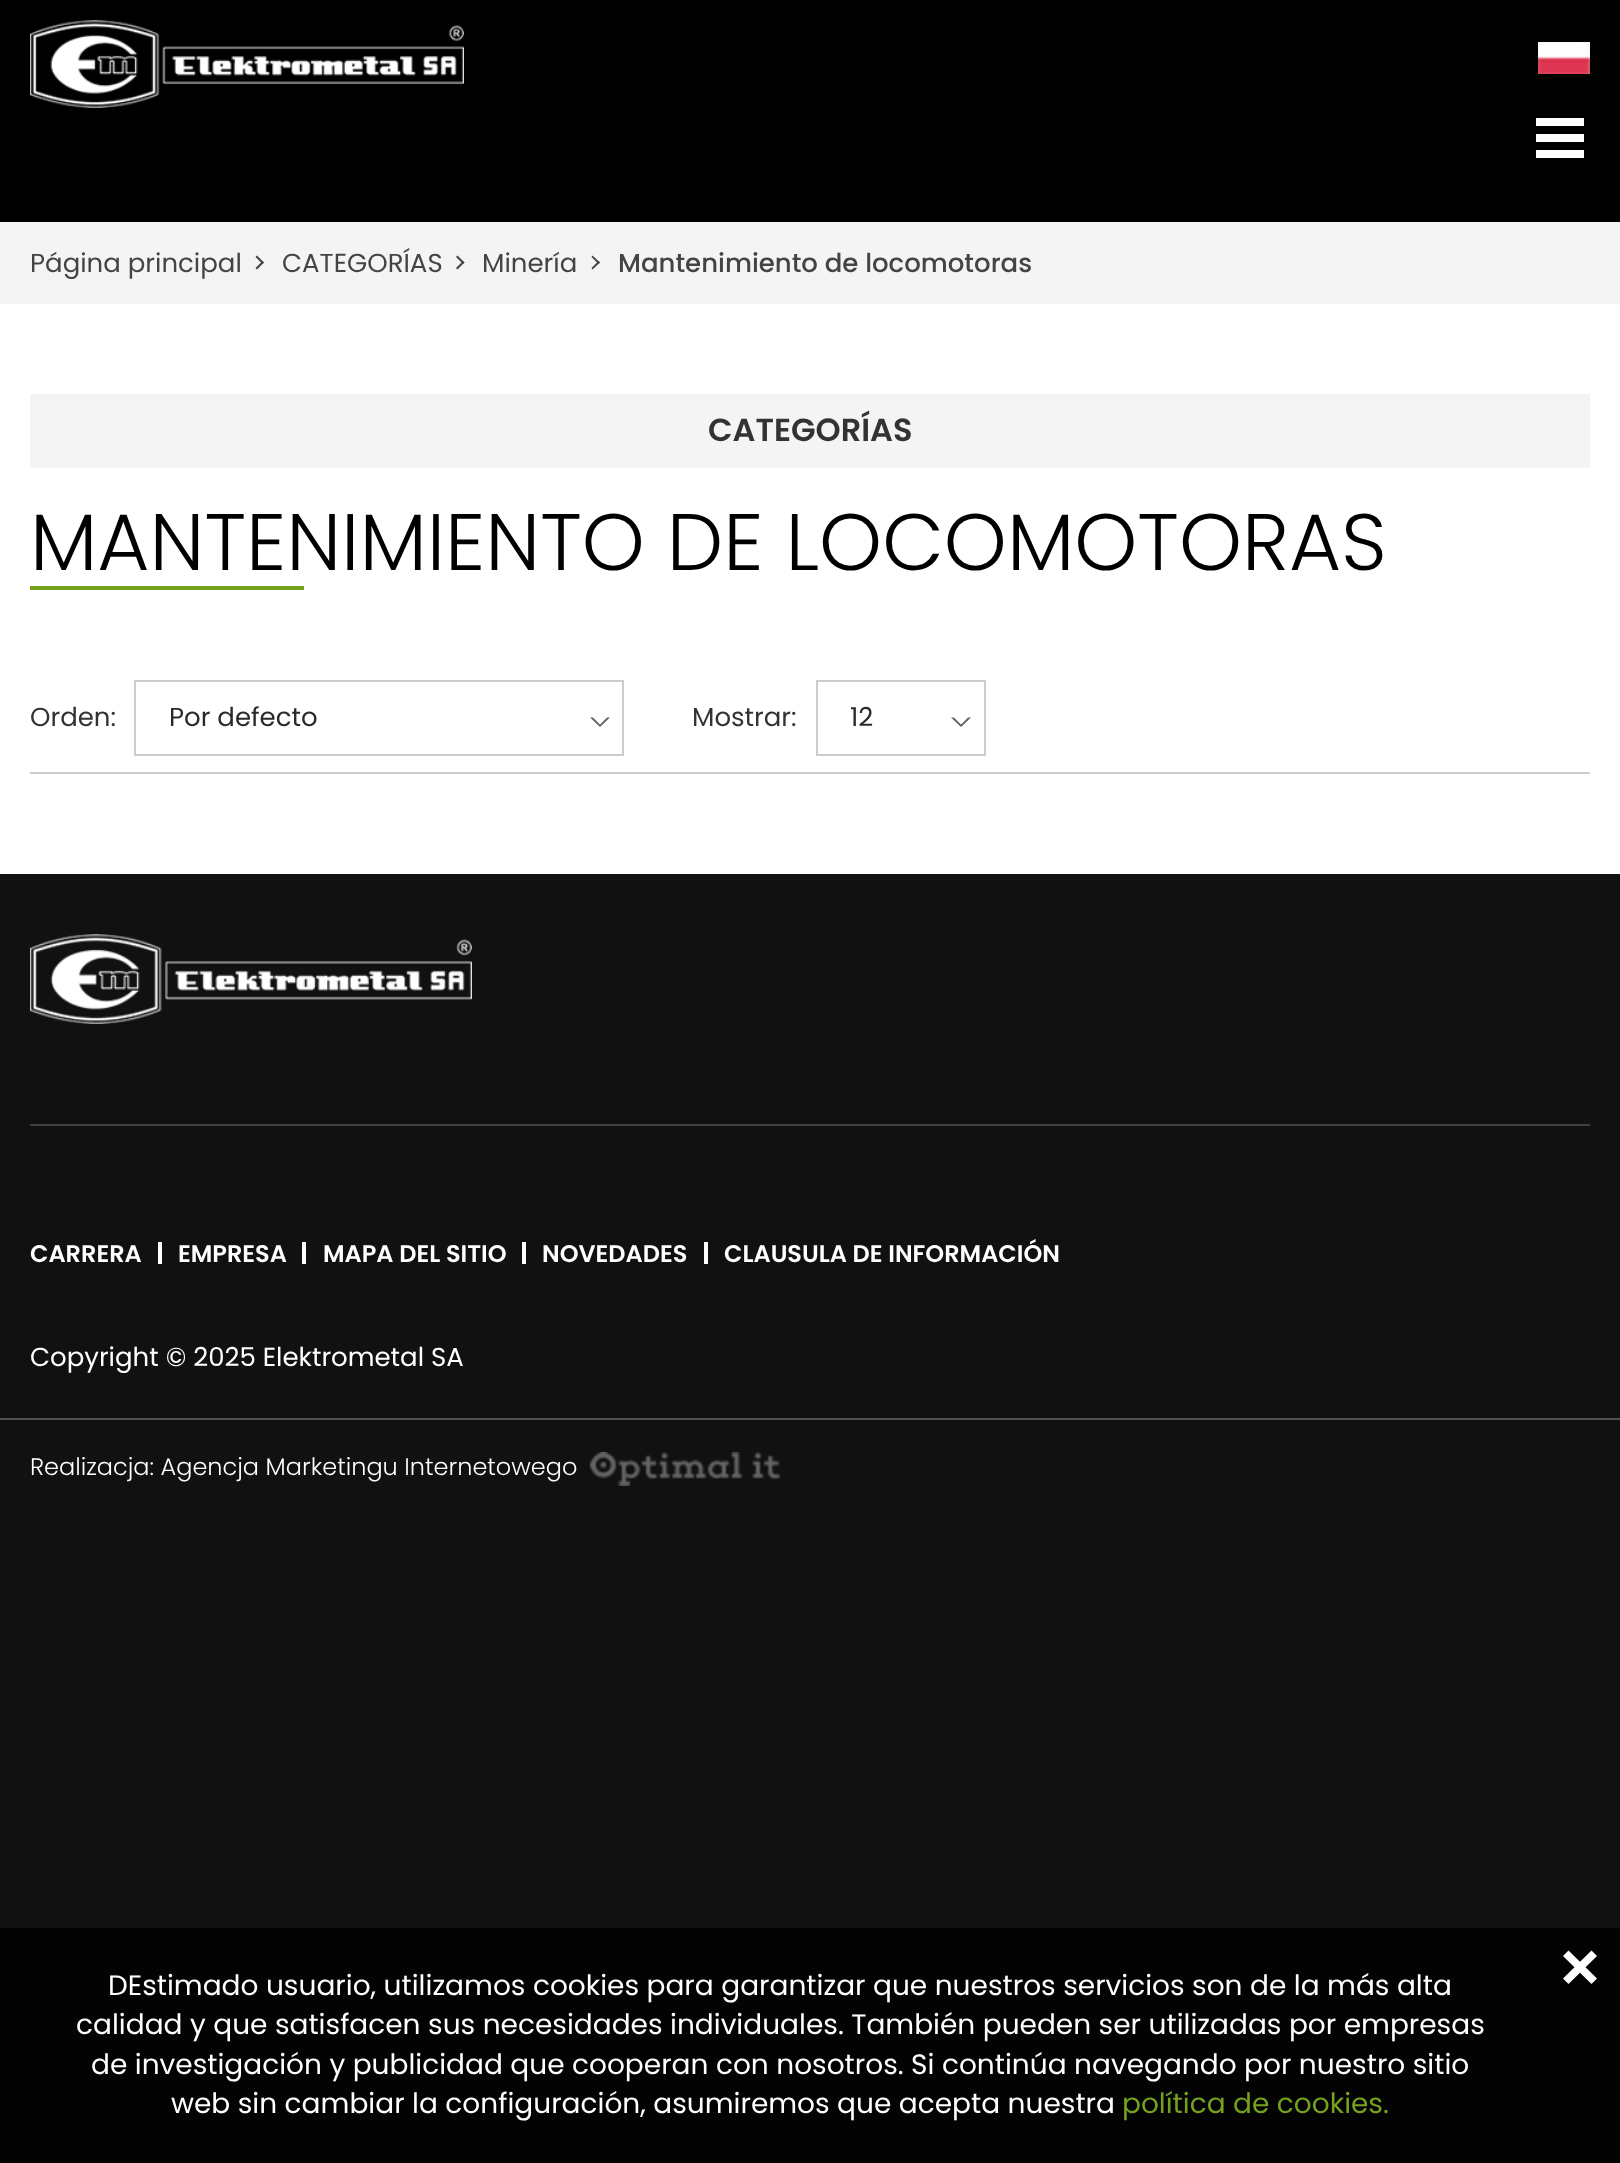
<!DOCTYPE html>
<meta charset="utf-8">
<style>body { margin: 0 } canvas { display: block }</style>
<canvas id="canvas" width="1620" height="2163"></canvas>
<script type="module">
  const canvas = document.getElementById("canvas");
  const ctx = canvas.getContext("2d");
  ctx.miterLimit = 4;
  ctx.fontKerning = "normal";
  async function loadImage(src) {
    const img = new Image();
    img.src = src;
    await img.decode();
    return img;
  }

  ctx.fillStyle = "#111111";
  ctx.fillRect(0, 0, 1620, 2163);
  ctx.fillStyle = "#000000";
  ctx.fillRect(0, 0, 1620, 222);
  ctx.drawImage(await loadImage("img1.png"), 30, 20, 434, 88);
  ctx.drawImage(await loadImage("img2.png"), 1538, 42, 52, 32);
  ctx.fillStyle = "#ffffff";
  ctx.fillRect(1536, 118, 48, 8);
  ctx.fillRect(1536, 134, 48, 8);
  ctx.fillRect(1536, 150, 48, 8);
  ctx.fillStyle = "#f4f4f4";
  ctx.fillRect(0, 222, 1620, 82);
  ctx.font = "26px Poppins";
  ctx.fillStyle = "#444444";
  ctx.fillText("Página principal", 30, 272);
  ctx.beginPath();
  ctx.moveTo(257, 255.5);
  ctx.lineTo(264, 262.5);
  ctx.lineTo(262.5, 264);
  ctx.lineTo(255.5, 257);
  ctx.closePath();
  ctx.fill();
  ctx.beginPath();
  ctx.moveTo(262.5, 261);
  ctx.lineTo(264, 262.5);
  ctx.lineTo(257, 269.5);
  ctx.lineTo(255.5, 268);
  ctx.closePath();
  ctx.fill();
  ctx.fillText("CATEGORÍAS", 282, 272);
  ctx.beginPath();
  ctx.moveTo(457.5, 255.5);
  ctx.lineTo(464.5, 262.5);
  ctx.lineTo(463, 264);
  ctx.lineTo(456, 257);
  ctx.closePath();
  ctx.fill();
  ctx.beginPath();
  ctx.moveTo(463, 261);
  ctx.lineTo(464.5, 262.5);
  ctx.lineTo(457.5, 269.5);
  ctx.lineTo(456, 268);
  ctx.closePath();
  ctx.fill();
  ctx.fillText("Minería", 482, 272);
  ctx.beginPath();
  ctx.moveTo(592.5, 255.5);
  ctx.lineTo(600, 262.5);
  ctx.lineTo(598.5, 264);
  ctx.lineTo(591.5, 257);
  ctx.closePath();
  ctx.fill();
  ctx.beginPath();
  ctx.moveTo(598.5, 261);
  ctx.lineTo(600, 262.5);
  ctx.lineTo(592.5, 269.5);
  ctx.lineTo(591.5, 268);
  ctx.closePath();
  ctx.fill();
  ctx.font = "500 26px Poppins";
  ctx.fillText("Mantenimiento de locomotoras", 618, 272);
  ctx.fillStyle = "#ffffff";
  ctx.fillRect(0, 304, 1620, 570);
  ctx.fillStyle = "#f4f4f4";
  ctx.fillRect(30, 394, 1560, 74);
  ctx.font = "600 32px Poppins";
  ctx.fillStyle = "#333333";
  ctx.fillText("CATEGORÍAS", 708, 441);
  ctx.font = "300 80px Poppins";
  ctx.fillStyle = "#000000";
  ctx.fillText("MANTENIMIENTO DE LOCOMOTORAS", 30, 570);
  ctx.fillStyle = "#74a21e";
  ctx.fillRect(30, 586, 274, 4);
  ctx.font = "26px Poppins";
  ctx.fillStyle = "#333333";
  ctx.fillText("Orden:", 30, 726);
  ctx.strokeStyle = "#cccccc";
  ctx.lineWidth = 2;
  ctx.strokeRect(135, 681, 488, 74);
  ctx.fillStyle = "#2a2a2a";
  ctx.fillText("Por defecto", 169, 726);
  ctx.fillStyle = "#666666";
  ctx.beginPath();
  ctx.moveTo(610, 717.5);
  ctx.lineTo(600, 727);
  ctx.lineTo(600, 724.5);
  ctx.lineTo(607, 717.5);
  ctx.closePath();
  ctx.moveTo(600, 727);
  ctx.lineTo(590, 717.5);
  ctx.lineTo(593, 717.5);
  ctx.lineTo(600, 724.5);
  ctx.closePath();
  ctx.fill();
  ctx.fillStyle = "#333333";
  ctx.fillText("Mostrar:", 692, 726);
  ctx.strokeRect(817, 681, 168, 74);
  ctx.fillStyle = "#2a2a2a";
  ctx.fillText("12", 850, 726);
  ctx.fillStyle = "#666666";
  ctx.beginPath();
  ctx.moveTo(971, 717.5);
  ctx.lineTo(961, 727);
  ctx.lineTo(961, 724.5);
  ctx.lineTo(968, 717.5);
  ctx.closePath();
  ctx.moveTo(961, 727);
  ctx.lineTo(951, 717.5);
  ctx.lineTo(954, 717.5);
  ctx.lineTo(961, 724.5);
  ctx.closePath();
  ctx.fill();
  ctx.fillStyle = "#cccccc";
  ctx.fillRect(30, 772, 1560, 2);
  ctx.drawImage(await loadImage("img3.png"), 30, 934, 442, 90);
  ctx.fillStyle = "#414141";
  ctx.fillRect(30, 1124, 1560, 2);
  ctx.fillStyle = "#ffffff";
  ctx.fillRect(158, 1242, 4, 22);
  ctx.font = "600 24px Poppins";
  ctx.fillText("CARRERA", 30, 1262);
  ctx.fillRect(302, 1242, 4, 22);
  ctx.fillText("EMPRESA", 178, 1262);
  ctx.fillRect(522, 1242, 4, 22);
  ctx.fillText("MAPA DEL SITIO", 323, 1262);
  ctx.fillRect(704, 1242, 4, 22);
  ctx.fillText("NOVEDADES", 542, 1262);
  ctx.fillText("CLAUSULA DE INFORMACIÓN", 724, 1262);
  ctx.font = "26px Poppins";
  ctx.fillText("Copyright © 2025 Elektrometal SA", 30, 1366);
  ctx.fillStyle = "#515151";
  ctx.fillRect(0, 1418, 1620, 2);
  ctx.font = "300 24px Poppins";
  ctx.fillStyle = "#ffffff";
  ctx.fillText("Realizacja: Agencja Marketingu Internetowego", 30, 1475);
  ctx.drawImage(await loadImage("img4.png"), 590, 1452, 190, 34);
  ctx.fillStyle = "#030303";
  ctx.fillRect(0, 1928, 1620, 235);
  ctx.fillStyle = "#ffffff";
  ctx.beginPath();
  ctx.moveTo(1563, 1978.5);
  ctx.lineTo(1591.5, 1950.5);
  ctx.lineTo(1597, 1956);
  ctx.lineTo(1568.5, 1984);
  ctx.closePath();
  ctx.fill();
  ctx.beginPath();
  ctx.moveTo(1568.5, 1950.5);
  ctx.lineTo(1597, 1978.5);
  ctx.lineTo(1591.5, 1984);
  ctx.lineTo(1563, 1956);
  ctx.closePath();
  ctx.fill();
  ctx.font = "28px Poppins";
  ctx.fillText("DEstimado usuario, utilizamos cookies para garantizar que nuestros servicios son de la más alta", 108, 1995);
  ctx.fillText("calidad y que satisfacen sus necesidades individuales. También pueden ser utilizadas por empresas", 76, 2034);
  ctx.fillText("de investigación y publicidad que cooperan con nosotros. Si continúa navegando por nuestro sitio", 91, 2074);
  ctx.fillText("web sin cambiar la configuración, asumiremos que acepta nuestra", 171, 2113);
  ctx.fillStyle = "#74a21e";
  ctx.fillText("política de cookies.", 1122, 2113);
</script>
